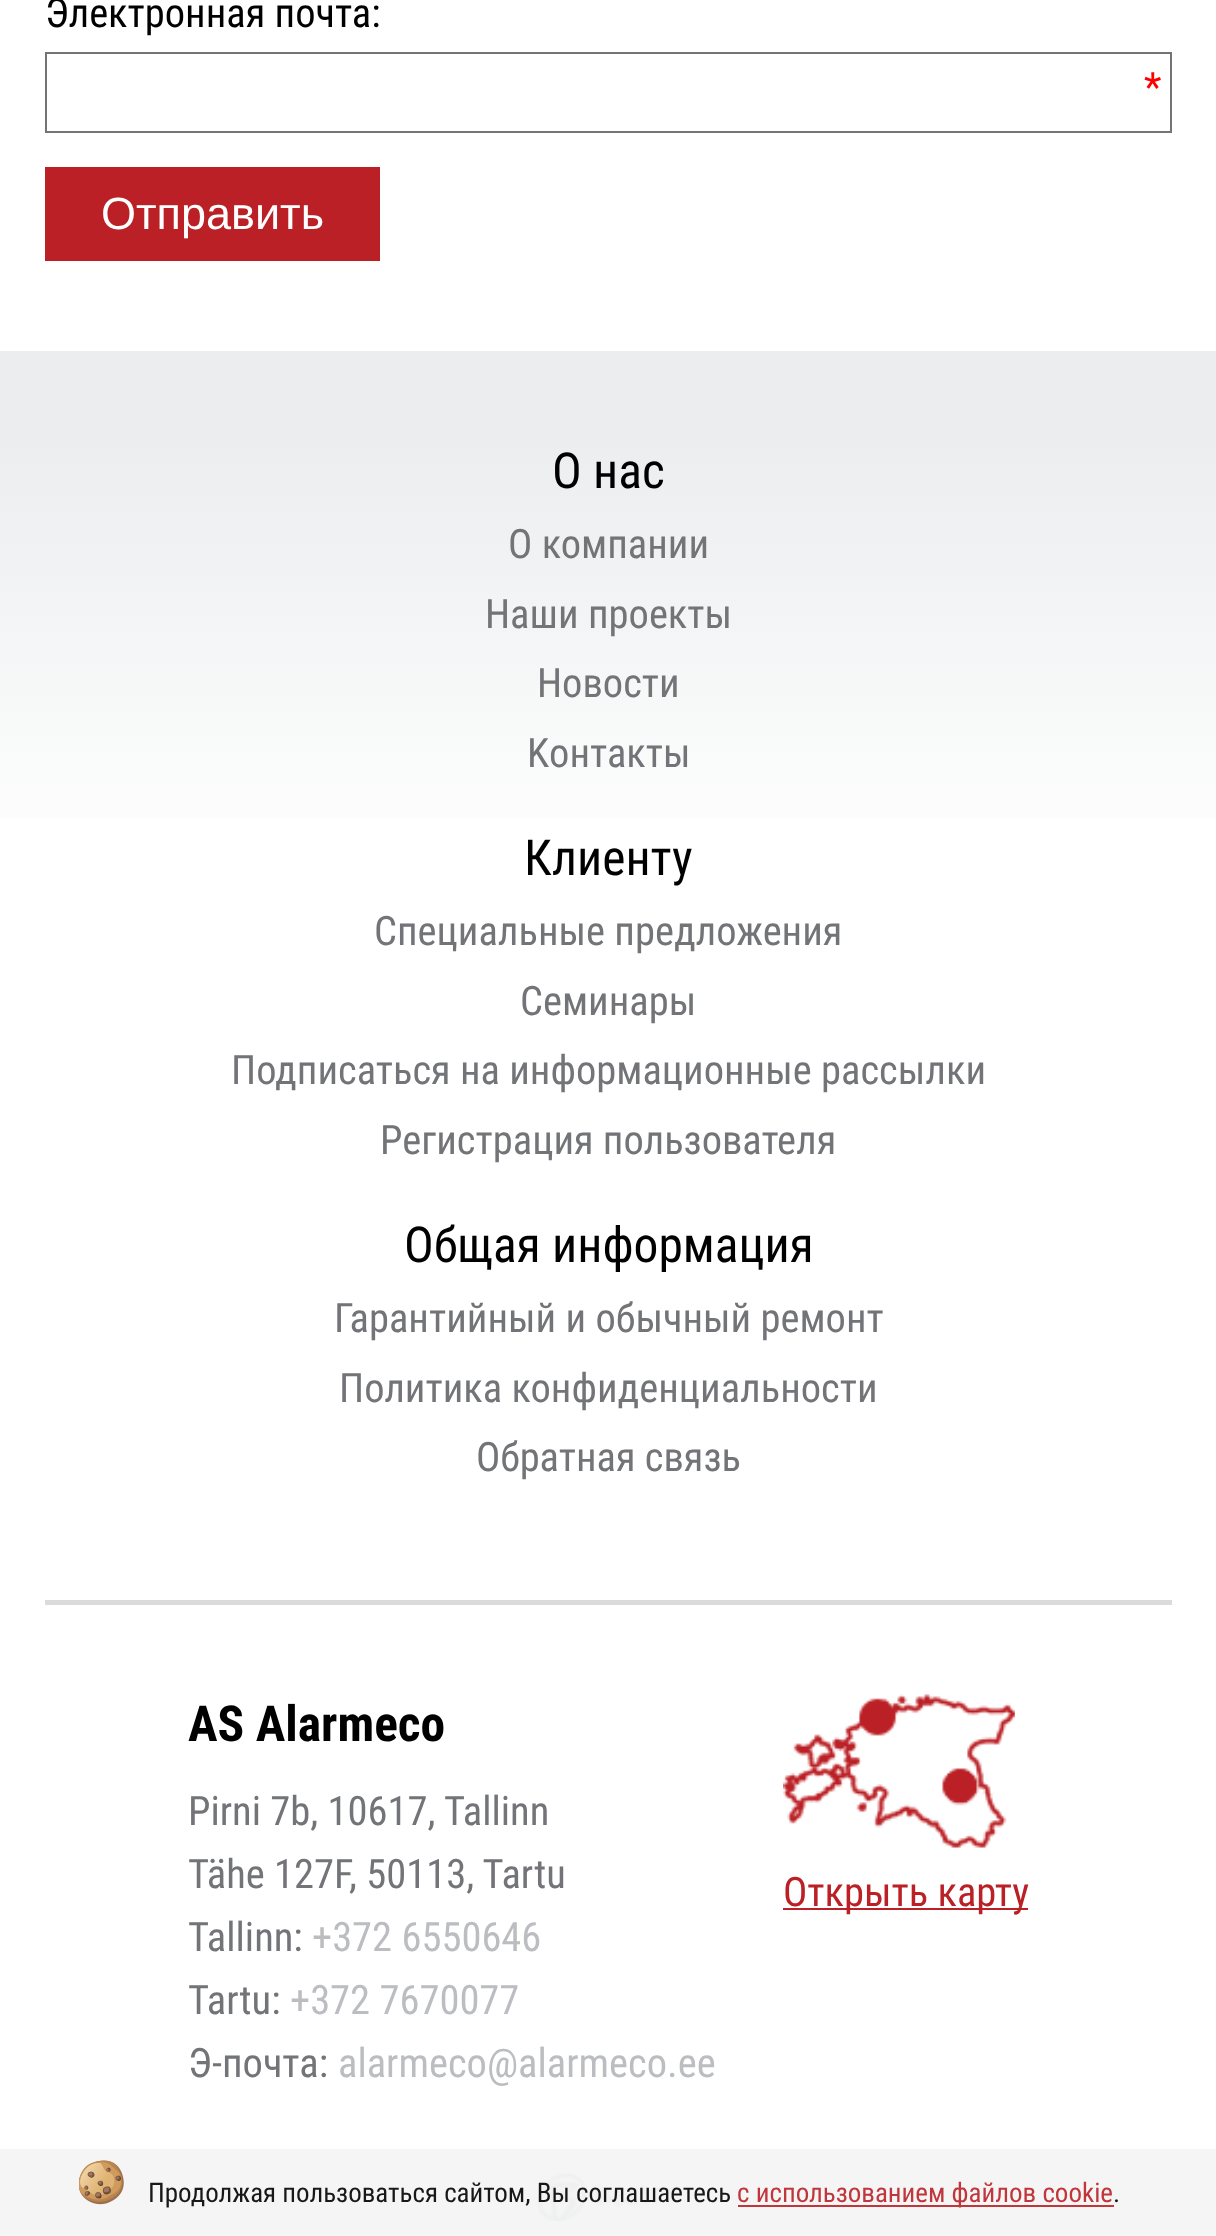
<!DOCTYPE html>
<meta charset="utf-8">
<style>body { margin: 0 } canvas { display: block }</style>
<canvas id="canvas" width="1216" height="2236"></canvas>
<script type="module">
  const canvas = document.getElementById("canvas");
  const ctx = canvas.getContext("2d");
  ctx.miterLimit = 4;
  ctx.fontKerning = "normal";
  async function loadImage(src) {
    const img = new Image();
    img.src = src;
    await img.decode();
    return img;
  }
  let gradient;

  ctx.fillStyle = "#ffffff";
  ctx.fillRect(0, 0, 1216, 2236);
  ctx.font = "40.5px Roboto Condensed";
  ctx.fillStyle = "#000000";
  ctx.fillText("Электронная почта:", 45, 27);
  ctx.strokeStyle = "#737477";
  ctx.lineWidth = 2;
  ctx.strokeRect(46, 53, 1125, 79);
  ctx.fillStyle = "#ff0000";
  ctx.fillText("*", 1144, 101);
  ctx.fillStyle = "#ba2025";
  ctx.fillRect(45, 167, 335, 94);
  ctx.font = "45px Liberation Sans";
  ctx.fillStyle = "#ffffff";
  ctx.fillText("Отправить", 101, 229);
  gradient = ctx.createLinearGradient(609, 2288, 609, 351);
  gradient.addColorStop(0.73, "#ffffff");
  gradient.addColorStop(0.96, "#ebedee");
  gradient.addColorStop(1, "#ebedee");
  ctx.fillStyle = gradient;
  ctx.fillRect(0, 351, 1216, 467);
  gradient = ctx.createLinearGradient(609, 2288, 609, 351);
  gradient.addColorStop(0.73, "#f5f5f5");
  gradient.addColorStop(0.96, "#f3f3f3");
  gradient.addColorStop(1, "#f3f3f3");
  ctx.fillStyle = gradient;
  ctx.fillRect(0, 2149, 1216, 87);
  ctx.font = "49.5px Roboto Condensed";
  ctx.fillStyle = "#000000";
  ctx.fillText("О нас", 552, 488);
  ctx.font = "40.5px Roboto Condensed";
  ctx.fillStyle = "#737477";
  ctx.fillText("О компании", 508, 558);
  ctx.fillText("Наши проекты", 485, 628);
  ctx.fillText("Новости", 537, 697);
  ctx.fillText("Kонтакты", 527, 767);
  ctx.font = "49.5px Roboto Condensed";
  ctx.fillStyle = "#000000";
  ctx.fillText("Клиенту", 524, 875);
  ctx.font = "40.5px Roboto Condensed";
  ctx.fillStyle = "#737477";
  ctx.fillText("Специальные предложения", 374, 945);
  ctx.fillText("Семинары", 520, 1015);
  ctx.fillText("Подписаться на информационные рассылки", 231, 1084);
  ctx.fillText("Регистрация пользователя", 380, 1154);
  ctx.font = "49.5px Roboto Condensed";
  ctx.fillStyle = "#000000";
  ctx.fillText("Общая информация", 404, 1262);
  ctx.font = "40.5px Roboto Condensed";
  ctx.fillStyle = "#737477";
  ctx.fillText("Гарантийный и обычный ремонт", 334, 1332);
  ctx.fillText("Политика конфиденциальности", 339, 1402);
  ctx.fillText("Oбратная связь", 476, 1471);
  ctx.fillStyle = "#dbdbdb";
  ctx.fillRect(45, 1600, 1127, 5);
  ctx.font = "bold 49.5px Roboto Condensed";
  ctx.fillStyle = "#000000";
  ctx.fillText("AS Alarmeco", 188, 1741);
  ctx.font = "40.5px Roboto Condensed";
  ctx.fillStyle = "#737477";
  ctx.fillText("Pirni 7b, 10617, Tallinn", 188, 1825);
  ctx.fillText("Tähe 127F, 50113, Tartu", 188, 1888);
  ctx.fillText("Tallinn:", 188, 1951);
  ctx.fillStyle = "#bbbdc0";
  ctx.fillText("+372 6550646", 312, 1951);
  ctx.fillStyle = "#737477";
  ctx.fillText("Tartu:", 188, 2014);
  ctx.fillStyle = "#bbbdc0";
  ctx.fillText("+372 7670077", 290, 2014);
  ctx.fillStyle = "#737477";
  ctx.fillText("Э-почта:", 188, 2077);
  ctx.fillStyle = "#bbbdc0";
  ctx.fillText("alarmeco@alarmeco.ee", 338, 2077);
  ctx.drawImage(await loadImage("img1.png"), 783, 1694, 232, 154);
  ctx.fillStyle = "#ba2025";
  ctx.fillRect(783, 1908, 245, 2);
  ctx.fillText("Открыть карту", 783, 1906);
  ctx.drawImage(await loadImage("img2.png"), 537, 2173, 145, 48);
  ctx.drawImage(await loadImage("img3.png"), 79, 2160, 45, 45);
  ctx.font = "27px Roboto Condensed";
  ctx.fillStyle = "#181818";
  ctx.fillText("Продолжая пользоваться сайтом, Вы соглашаетесь", 148, 2202);
  ctx.fillStyle = "#c1363b";
  ctx.fillRect(738, 2205, 376, 2);
  ctx.fillText("с использованием файлов cookie", 737, 2202);
  ctx.fillStyle = "#181818";
  ctx.fillText(".", 1113, 2202);
</script>
